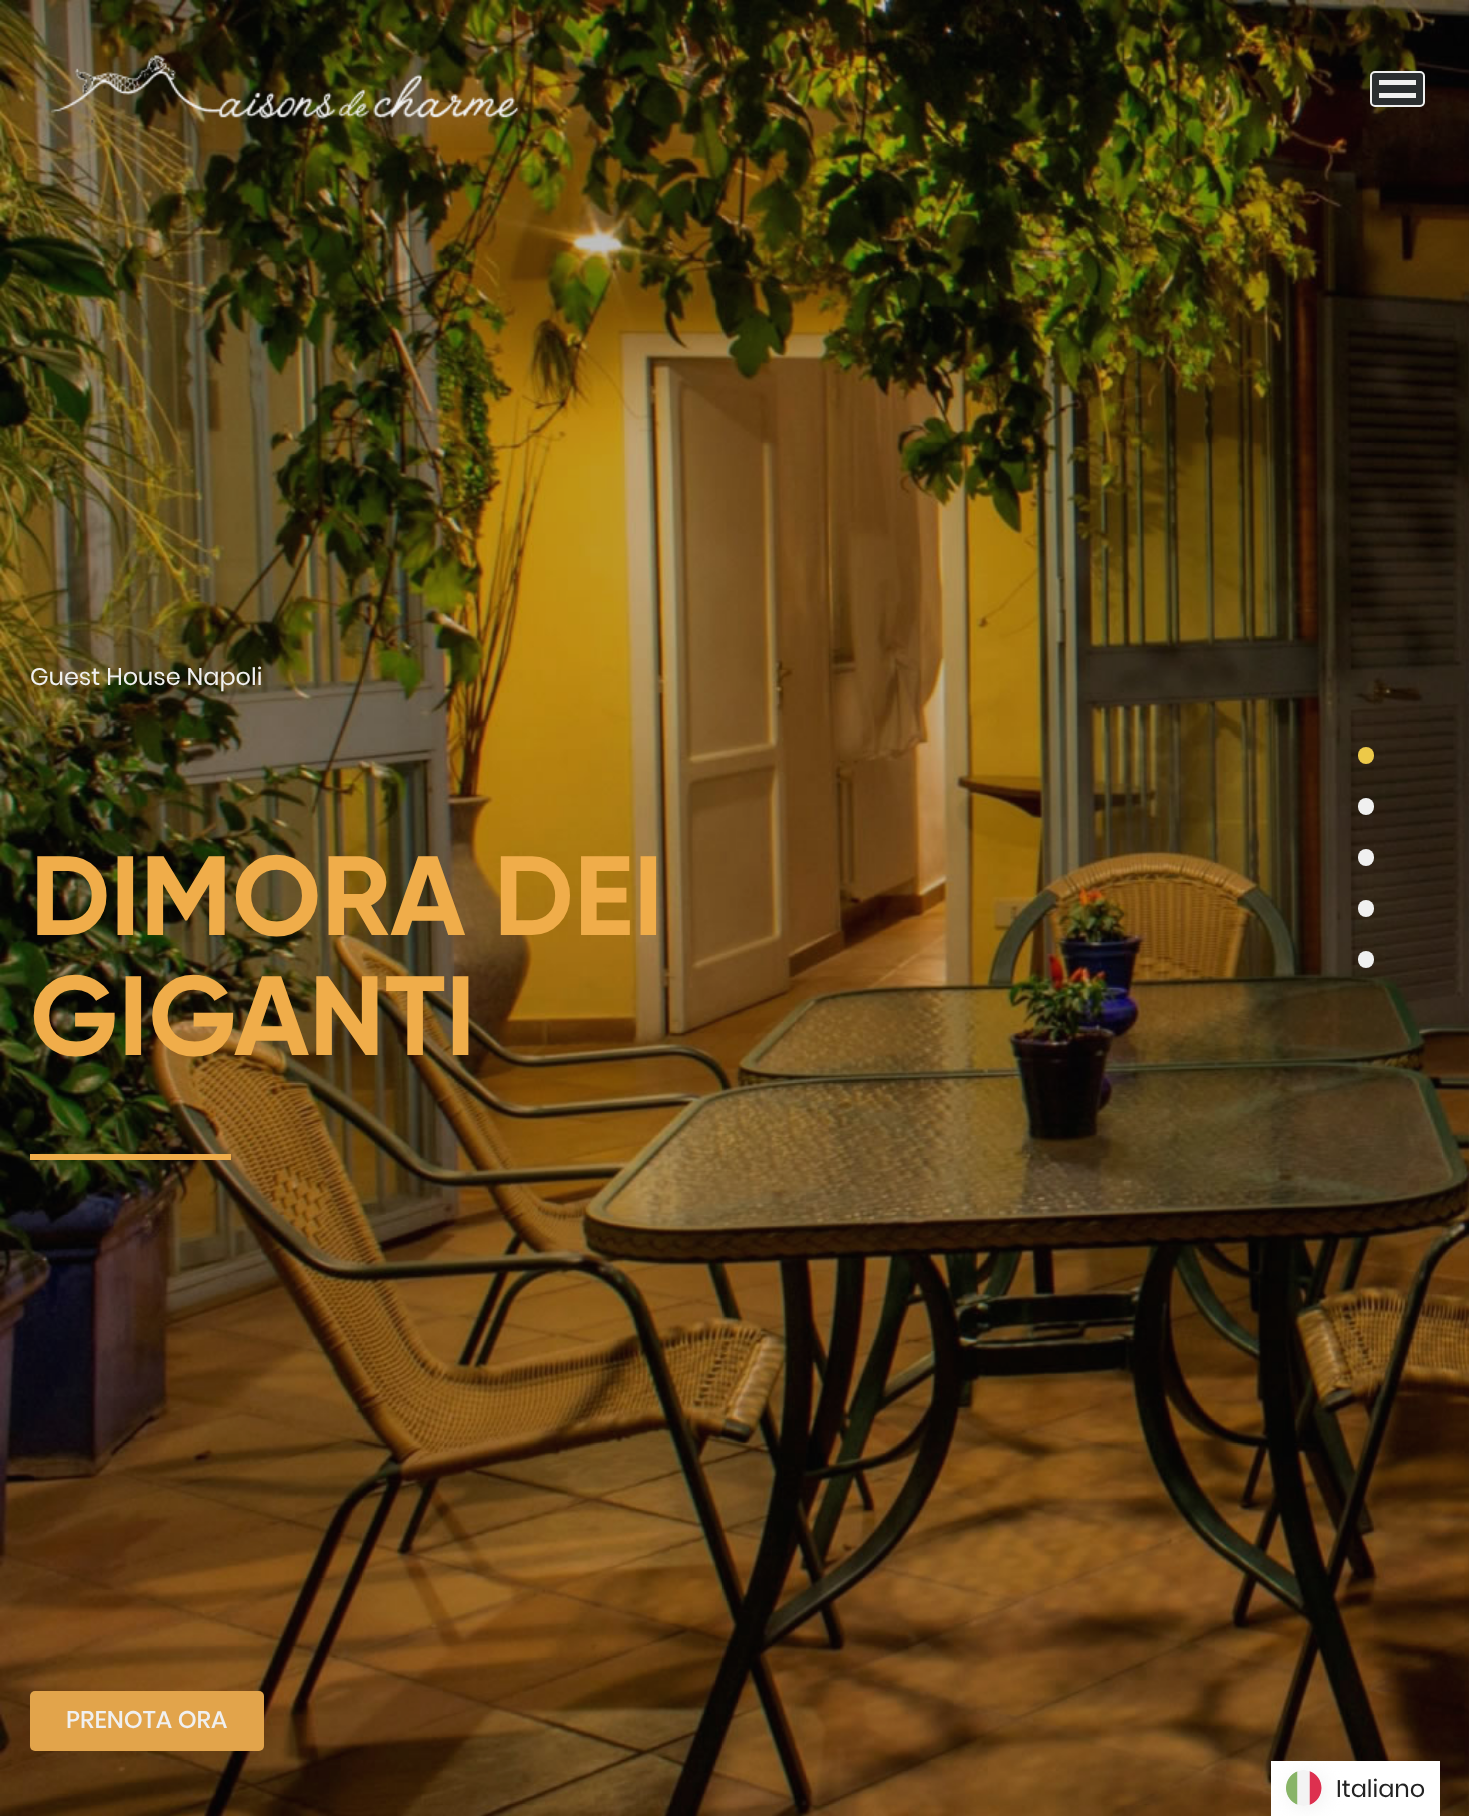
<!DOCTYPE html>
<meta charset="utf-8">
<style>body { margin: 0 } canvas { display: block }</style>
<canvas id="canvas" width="1469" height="1816"></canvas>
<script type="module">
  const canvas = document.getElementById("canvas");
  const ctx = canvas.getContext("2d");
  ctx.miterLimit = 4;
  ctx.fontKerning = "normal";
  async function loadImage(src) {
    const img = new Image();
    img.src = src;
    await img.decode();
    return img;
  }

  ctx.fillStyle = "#ffffff";
  ctx.fillRect(0, 0, 1469, 1816);
  ctx.drawImage(await loadImage("img2.png"), 1468, 0, 1, 1816);
  ctx.drawImage(await loadImage("img4.png"), 1468, 0, 1, 1816);
  ctx.drawImage(await loadImage("img3.png"), 0, 0, 1469, 1816);
  ctx.drawImage(await loadImage("img1.png"), 50, 55, 468, 69);
  ctx.fillStyle = "#2a2e30";
  ctx.beginPath();
  ctx.roundRect(1371, 72, 53, 34, 4);
  ctx.fill();
  ctx.strokeStyle = "#f0f0f0";
  ctx.lineWidth = 2;
  ctx.stroke();
  ctx.fillStyle = "#f0f0f0";
  ctx.fillRect(1379, 80, 37, 5);
  ctx.fillRect(1379, 93, 37, 5);
  ctx.font = "24px Poppins";
  ctx.fillText("Guest House Napoli", 30, 685);
  ctx.font = "bold 112.5px Gilroy";
  ctx.fillStyle = "#f0ad4a";
  ctx.fillText("DIMORA DEI", 30, 935);
  ctx.fillText("GIGANTI", 30, 1055);
  ctx.fillRect(30, 1154, 201, 6);
  ctx.fillStyle = "#e2a44b";
  ctx.beginPath();
  ctx.roundRect(30, 1691, 234, 60, 5);
  ctx.fill();
  ctx.font = "500 24px Poppins";
  ctx.fillStyle = "#f0f0f0";
  ctx.fillText("PRENOTA ORA", 66, 1728);
  ctx.fillStyle = "#edc949";
  ctx.beginPath();
  ctx.roundRect(1358, 747, 16, 17, 8);
  ctx.fill();
  ctx.fillStyle = "#f0f0f0";
  ctx.beginPath();
  ctx.roundRect(1358, 798, 16, 17, 8);
  ctx.fill();
  ctx.beginPath();
  ctx.roundRect(1358, 849, 16, 17, 8);
  ctx.fill();
  ctx.beginPath();
  ctx.roundRect(1358, 900, 16, 17, 8);
  ctx.fill();
  ctx.beginPath();
  ctx.roundRect(1358, 951, 16, 17, 8);
  ctx.fill();
  ctx.fillStyle = "#ffffff";
  ctx.fillRect(1271, 1761, 169, 55);
  ctx.save();
  ctx.beginPath();
  ctx.moveTo(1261, 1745);
  ctx.lineTo(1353, 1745);
  ctx.lineTo(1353, 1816);
  ctx.lineTo(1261, 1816);
  ctx.closePath();
  ctx.moveTo(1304, 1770);
  ctx.bezierCurveTo(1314, 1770, 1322, 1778, 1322, 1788);
  ctx.bezierCurveTo(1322, 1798, 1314, 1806, 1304, 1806);
  ctx.bezierCurveTo(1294, 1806, 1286, 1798, 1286, 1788);
  ctx.bezierCurveTo(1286, 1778, 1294, 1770, 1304, 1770);
  ctx.closePath();
  ctx.clip("evenodd");
  ctx.fillStyle = "rgba(238, 238, 238, 0.8)";
  ctx.filter = "blur(9px)";
  ctx.beginPath();
  ctx.roundRect(1289, 1773, 36, 36, 18);
  ctx.fill();
  ctx.filter = "none";
  ctx.restore();
  ctx.drawImage(await loadImage("img5.png"), 1286, 1770, 36, 36);
  ctx.font = "24px Poppins";
  ctx.fillStyle = "#222222";
  ctx.fillText("Italiano", 1336, 1797);
</script>
